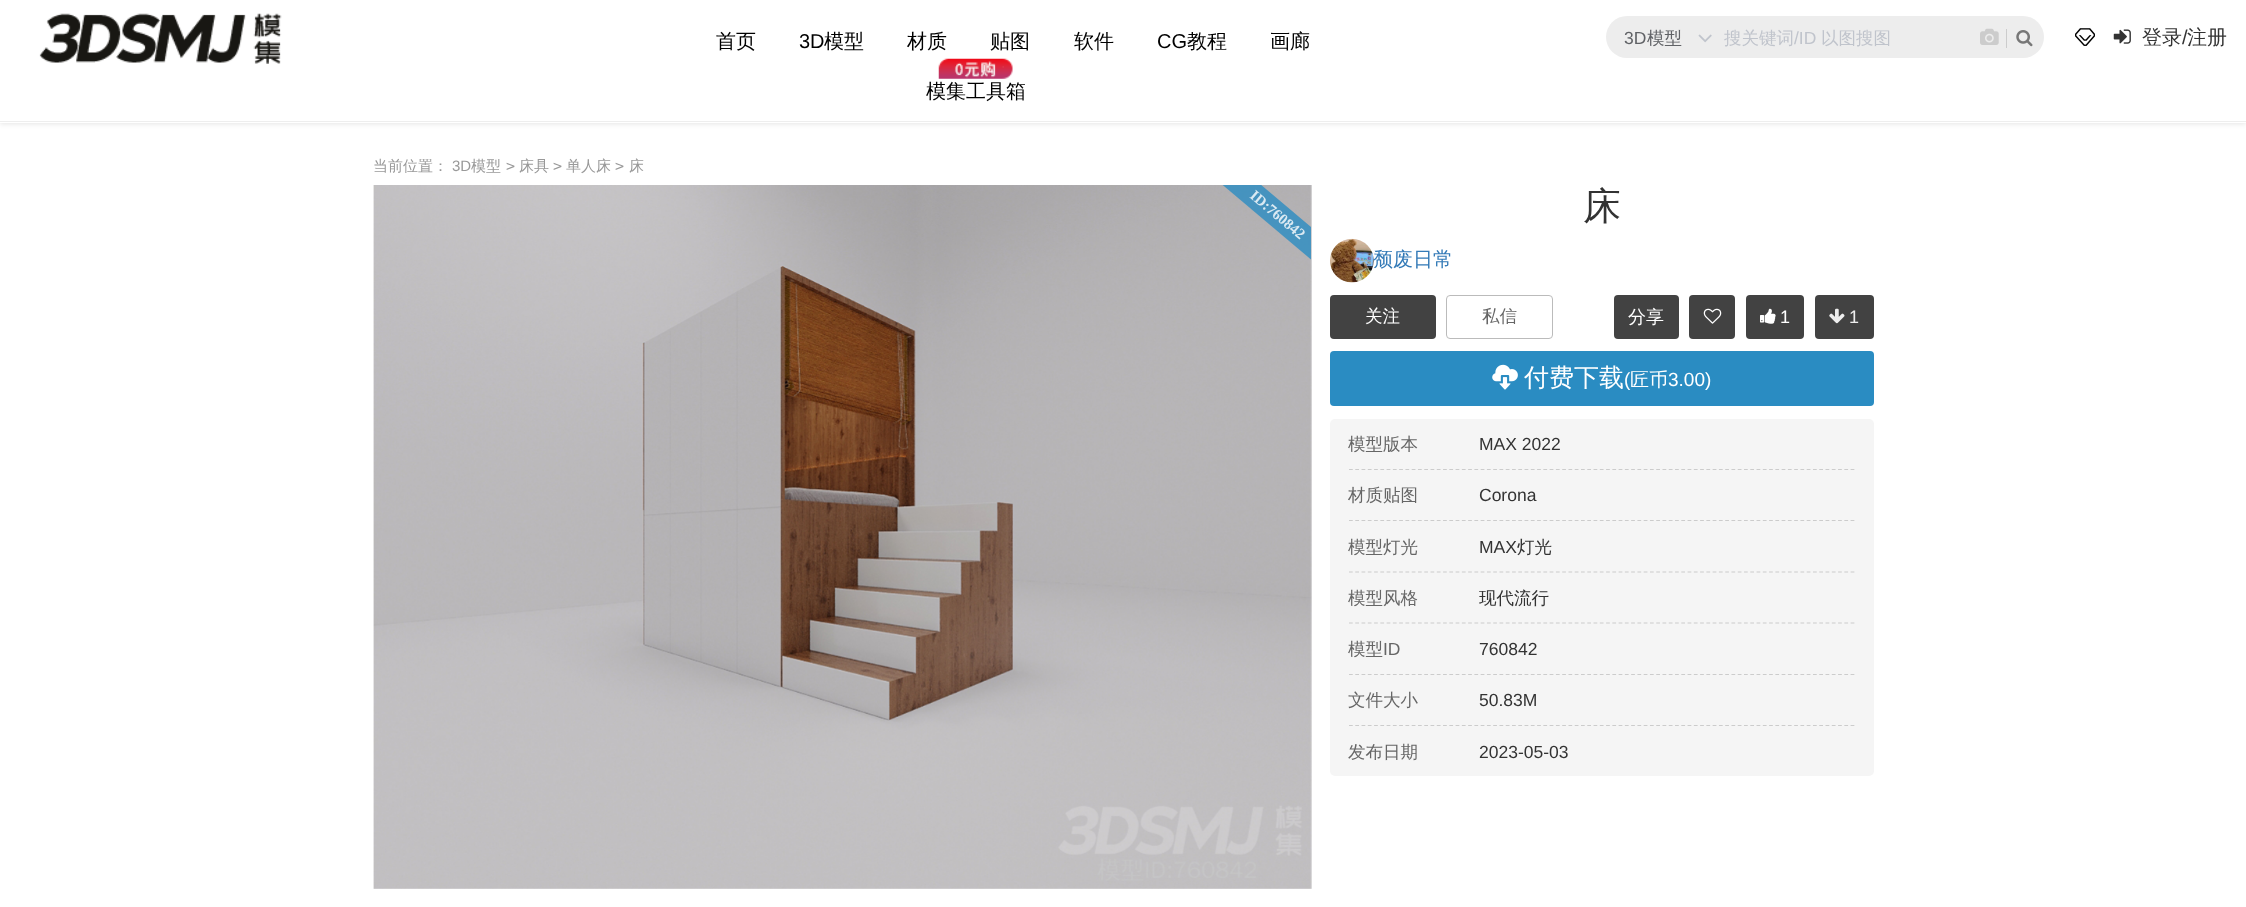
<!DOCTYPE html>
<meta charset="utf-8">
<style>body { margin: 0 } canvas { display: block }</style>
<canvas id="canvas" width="2246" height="907"></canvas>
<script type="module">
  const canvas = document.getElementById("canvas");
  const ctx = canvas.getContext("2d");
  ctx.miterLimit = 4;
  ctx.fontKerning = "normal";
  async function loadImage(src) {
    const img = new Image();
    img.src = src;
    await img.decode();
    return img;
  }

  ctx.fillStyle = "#ffffff";
  ctx.fillRect(0, 0, 2246, 907);
  ctx.save();
  ctx.beginPath();
  ctx.moveTo(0, 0);
  ctx.lineTo(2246, 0);
  ctx.lineTo(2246, 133);
  ctx.lineTo(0, 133);
  ctx.closePath();
  ctx.moveTo(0, 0);
  ctx.lineTo(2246, 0);
  ctx.lineTo(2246, 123);
  ctx.lineTo(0, 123);
  ctx.closePath();
  ctx.clip("evenodd");
  ctx.fillStyle = "rgba(0, 0, 0, 0.1)";
  ctx.filter = "blur(2.5px)";
  ctx.beginPath();
  ctx.rect(0, 1, 2246, 123);
  ctx.fill();
  ctx.filter = "none";
  ctx.restore();
  ctx.fillStyle = "#eeeeee";
  ctx.fillRect(0, 121, 2246, 1);
  ctx.drawImage(await loadImage("img1.png"), 39, 13, 243, 51);
  ctx.font = "500 20px WenQuanYi Zen Hei";
  ctx.fillStyle = "#000000";
  ctx.fillText("首页", 716, 48);
  ctx.font = "20px Liberation Sans";
  ctx.fillText("3D", 799, 48);
  ctx.font = "500 20px WenQuanYi Zen Hei";
  ctx.fillText("模型", 824, 48);
  ctx.fillText("材质", 907, 48);
  ctx.fillText("贴图", 990, 48);
  ctx.fillText("软件", 1074, 48);
  ctx.font = "20px Liberation Sans";
  ctx.fillText("CG", 1157, 48);
  ctx.font = "500 20px WenQuanYi Zen Hei";
  ctx.fillText("教程", 1187, 48);
  ctx.fillText("画廊", 1270, 48);
  ctx.drawImage(await loadImage("img2.png"), 938, 58, 75, 21);
  ctx.fillText("模集工具箱", 926, 98);
  ctx.fillStyle = "#ededed";
  ctx.beginPath();
  ctx.roundRect(1606, 16, 438, 42, 21);
  ctx.fill();
  ctx.font = "17.5px Liberation Sans";
  ctx.fillStyle = "#606266";
  ctx.fillText("3D", 1624, 44);
  ctx.font = "500 17.5px WenQuanYi Zen Hei";
  ctx.fillText("模型", 1647, 44);
  ctx.drawImage(await loadImage("img3.png"), 1698, 34, 14, 9);
  ctx.fillStyle = "#c0c4cc";
  ctx.fillText("搜关键词", 1724, 44);
  ctx.font = "17.5px Liberation Sans";
  ctx.fillText("/ID", 1794, 44);
  ctx.font = "500 17.5px WenQuanYi Zen Hei";
  ctx.fillText("以图搜图", 1821, 44);
  ctx.fillStyle = "#cccccc";
  ctx.fillRect(2006, 29, 1, 19);
  ctx.drawImage(await loadImage("img4.png"), 1980, 28, 19, 17);
  ctx.drawImage(await loadImage("img5.png"), 2016, 30, 17, 17);
  ctx.drawImage(await loadImage("img6.png"), 2075, 28, 20, 18);
  ctx.drawImage(await loadImage("img7.png"), 2113, 29, 18, 15);
  ctx.font = "500 20px WenQuanYi Zen Hei";
  ctx.fillStyle = "#333333";
  ctx.fillText("登录", 2142, 44);
  ctx.font = "20px Liberation Sans";
  ctx.fillText("/", 2182, 44);
  ctx.font = "500 20px WenQuanYi Zen Hei";
  ctx.fillText("注册", 2187, 44);
  ctx.font = "500 15px WenQuanYi Zen Hei";
  ctx.fillStyle = "#999999";
  ctx.fillText("当前位置：", 373, 171);
  ctx.font = "15px Liberation Sans";
  ctx.fillText("3D", 452, 171);
  ctx.font = "500 15px WenQuanYi Zen Hei";
  ctx.fillText("模型", 471, 171);
  ctx.font = "15px DejaVu Sans Mono";
  ctx.fillText(">", 506, 171);
  ctx.font = "500 15px WenQuanYi Zen Hei";
  ctx.fillText("床具", 519, 171);
  ctx.font = "15px DejaVu Sans Mono";
  ctx.fillText(">", 553, 171);
  ctx.font = "500 15px WenQuanYi Zen Hei";
  ctx.fillText("单人床", 566, 171);
  ctx.font = "15px DejaVu Sans Mono";
  ctx.fillText(">", 615, 171);
  ctx.font = "500 15px WenQuanYi Zen Hei";
  ctx.fillText("床", 629, 171);
  ctx.drawImage(await loadImage("img8.png"), 373, 185, 939, 704);
  ctx.save();
  ctx.beginPath();
  ctx.rect(374, 185, 937, 704);
  ctx.clip();
  ctx.fillStyle = "rgba(42, 140, 194, 0.8)";
  ctx.beginPath();
  ctx.moveTo(1202, 135);
  ctx.lineTo(1369, 276);
  ctx.lineTo(1353, 295);
  ctx.lineTo(1186, 154);
  ctx.closePath();
  ctx.fill();
  ctx.restore();
  ctx.font = "bold 15px Liberation Serif";
  ctx.fillStyle = "#dae9f2";
  ctx.save();
  ctx.translate(1249, 197);
  ctx.rotate(40 * Math.PI / 180);
  ctx.fillText("ID:760842", 0, 0);
  ctx.restore();
  ctx.font = "500 38px WenQuanYi Zen Hei";
  ctx.fillStyle = "#333333";
  ctx.fillText("床", 1583, 219);
  ctx.drawImage(await loadImage("img9.png"), 1330, 238, 44, 45);
  ctx.font = "500 20px WenQuanYi Zen Hei";
  ctx.fillStyle = "#337ab7";
  ctx.fillText("颓废日常", 1373, 266);
  ctx.fillStyle = "#424242";
  ctx.beginPath();
  ctx.roundRect(1330, 295, 106, 44, 4);
  ctx.fill();
  ctx.font = "500 17.5px WenQuanYi Zen Hei";
  ctx.fillStyle = "#ffffff";
  ctx.fillText("关注", 1365, 322);
  ctx.beginPath();
  ctx.roundRect(1446.5, 295.5, 106, 43, 3.5);
  ctx.strokeStyle = "#bbbbbb";
  ctx.stroke();
  ctx.fillStyle = "#666666";
  ctx.fillText("私信", 1482, 322);
  ctx.fillStyle = "#424242";
  ctx.beginPath();
  ctx.roundRect(1614, 295, 65, 44, 4);
  ctx.fill();
  ctx.font = "500 18px WenQuanYi Zen Hei";
  ctx.fillStyle = "#ffffff";
  ctx.fillText("分享", 1628, 323);
  ctx.fillStyle = "#424242";
  ctx.beginPath();
  ctx.roundRect(1689, 295, 46, 44, 4);
  ctx.fill();
  ctx.drawImage(await loadImage("img10.png"), 1703, 308, 19, 16);
  ctx.beginPath();
  ctx.roundRect(1746, 295, 58, 44, 4);
  ctx.fill();
  ctx.drawImage(await loadImage("img11.png"), 1760, 308, 16, 16);
  ctx.font = "18px Liberation Sans";
  ctx.fillStyle = "#ffffff";
  ctx.fillText("1", 1780, 323);
  ctx.fillStyle = "#424242";
  ctx.beginPath();
  ctx.roundRect(1815, 295, 59, 44, 4);
  ctx.fill();
  ctx.drawImage(await loadImage("img12.png"), 1829, 308, 16, 16);
  ctx.fillStyle = "#eeeeee";
  ctx.fillText("1", 1849, 323);
  ctx.fillStyle = "#2a8cc2";
  ctx.beginPath();
  ctx.roundRect(1330, 351, 544, 55, 4);
  ctx.fill();
  ctx.drawImage(await loadImage("img13.png"), 1492, 364, 26, 26);
  ctx.font = "500 25px WenQuanYi Zen Hei";
  ctx.fillStyle = "#ffffff";
  ctx.fillText("付费下载", 1524, 386);
  ctx.font = "19px Liberation Sans";
  ctx.fillText("(", 1624, 386);
  ctx.font = "500 19px WenQuanYi Zen Hei";
  ctx.fillText("匠币", 1630, 386);
  ctx.font = "19px Liberation Sans";
  ctx.fillText("3.00)", 1668, 386);
  ctx.fillStyle = "#f5f5f5";
  ctx.beginPath();
  ctx.roundRect(1330, 419, 544, 357, 5);
  ctx.fill();
  ctx.beginPath();
  ctx.moveTo(1349, 469.5);
  ctx.lineTo(1855, 469.5);
  ctx.strokeStyle = "#cccccc";
  ctx.lineWidth = 1.2;
  ctx.setLineDash([3.75, 2.52]);
  ctx.stroke();
  ctx.font = "500 17.5px WenQuanYi Zen Hei";
  ctx.fillStyle = "#666666";
  ctx.fillText("模型版本", 1348, 450);
  ctx.font = "17.5px Liberation Sans";
  ctx.fillStyle = "#333333";
  ctx.fillText("MAX 2022", 1479, 450);
  ctx.beginPath();
  ctx.moveTo(1349, 520.5);
  ctx.lineTo(1855, 520.5);
  ctx.stroke();
  ctx.font = "500 17.5px WenQuanYi Zen Hei";
  ctx.fillStyle = "#666666";
  ctx.fillText("材质贴图", 1348, 501);
  ctx.font = "17.5px Liberation Sans";
  ctx.fillStyle = "#333333";
  ctx.fillText("Corona", 1479, 501);
  ctx.beginPath();
  ctx.moveTo(1349, 572);
  ctx.lineTo(1855, 572);
  ctx.stroke();
  ctx.font = "500 17.5px WenQuanYi Zen Hei";
  ctx.fillStyle = "#666666";
  ctx.fillText("模型灯光", 1348, 553);
  ctx.font = "17.5px Liberation Sans";
  ctx.fillStyle = "#333333";
  ctx.fillText("MAX", 1479, 553);
  ctx.font = "500 17.5px WenQuanYi Zen Hei";
  ctx.fillText("灯光", 1517, 553);
  ctx.beginPath();
  ctx.moveTo(1349, 623);
  ctx.lineTo(1855, 623);
  ctx.stroke();
  ctx.fillStyle = "#666666";
  ctx.fillText("模型风格", 1348, 604);
  ctx.fillStyle = "#333333";
  ctx.fillText("现代流行", 1479, 604);
  ctx.beginPath();
  ctx.moveTo(1349, 674.5);
  ctx.lineTo(1855, 674.5);
  ctx.stroke();
  ctx.fillStyle = "#666666";
  ctx.fillText("模型", 1348, 655);
  ctx.font = "17.5px Liberation Sans";
  ctx.fillText("ID", 1383, 655);
  ctx.fillStyle = "#333333";
  ctx.fillText("760842", 1479, 655);
  ctx.beginPath();
  ctx.moveTo(1349, 725.5);
  ctx.lineTo(1855, 725.5);
  ctx.stroke();
  ctx.font = "500 17.5px WenQuanYi Zen Hei";
  ctx.fillStyle = "#666666";
  ctx.fillText("文件大小", 1348, 706);
  ctx.font = "17.5px Liberation Sans";
  ctx.fillStyle = "#333333";
  ctx.fillText("50.83M", 1479, 706);
  ctx.font = "500 17.5px WenQuanYi Zen Hei";
  ctx.fillStyle = "#666666";
  ctx.fillText("发布日期", 1348, 758);
  ctx.font = "17.5px Liberation Sans";
  ctx.fillStyle = "#333333";
  ctx.fillText("2023-05-03", 1479, 758);
</script>
